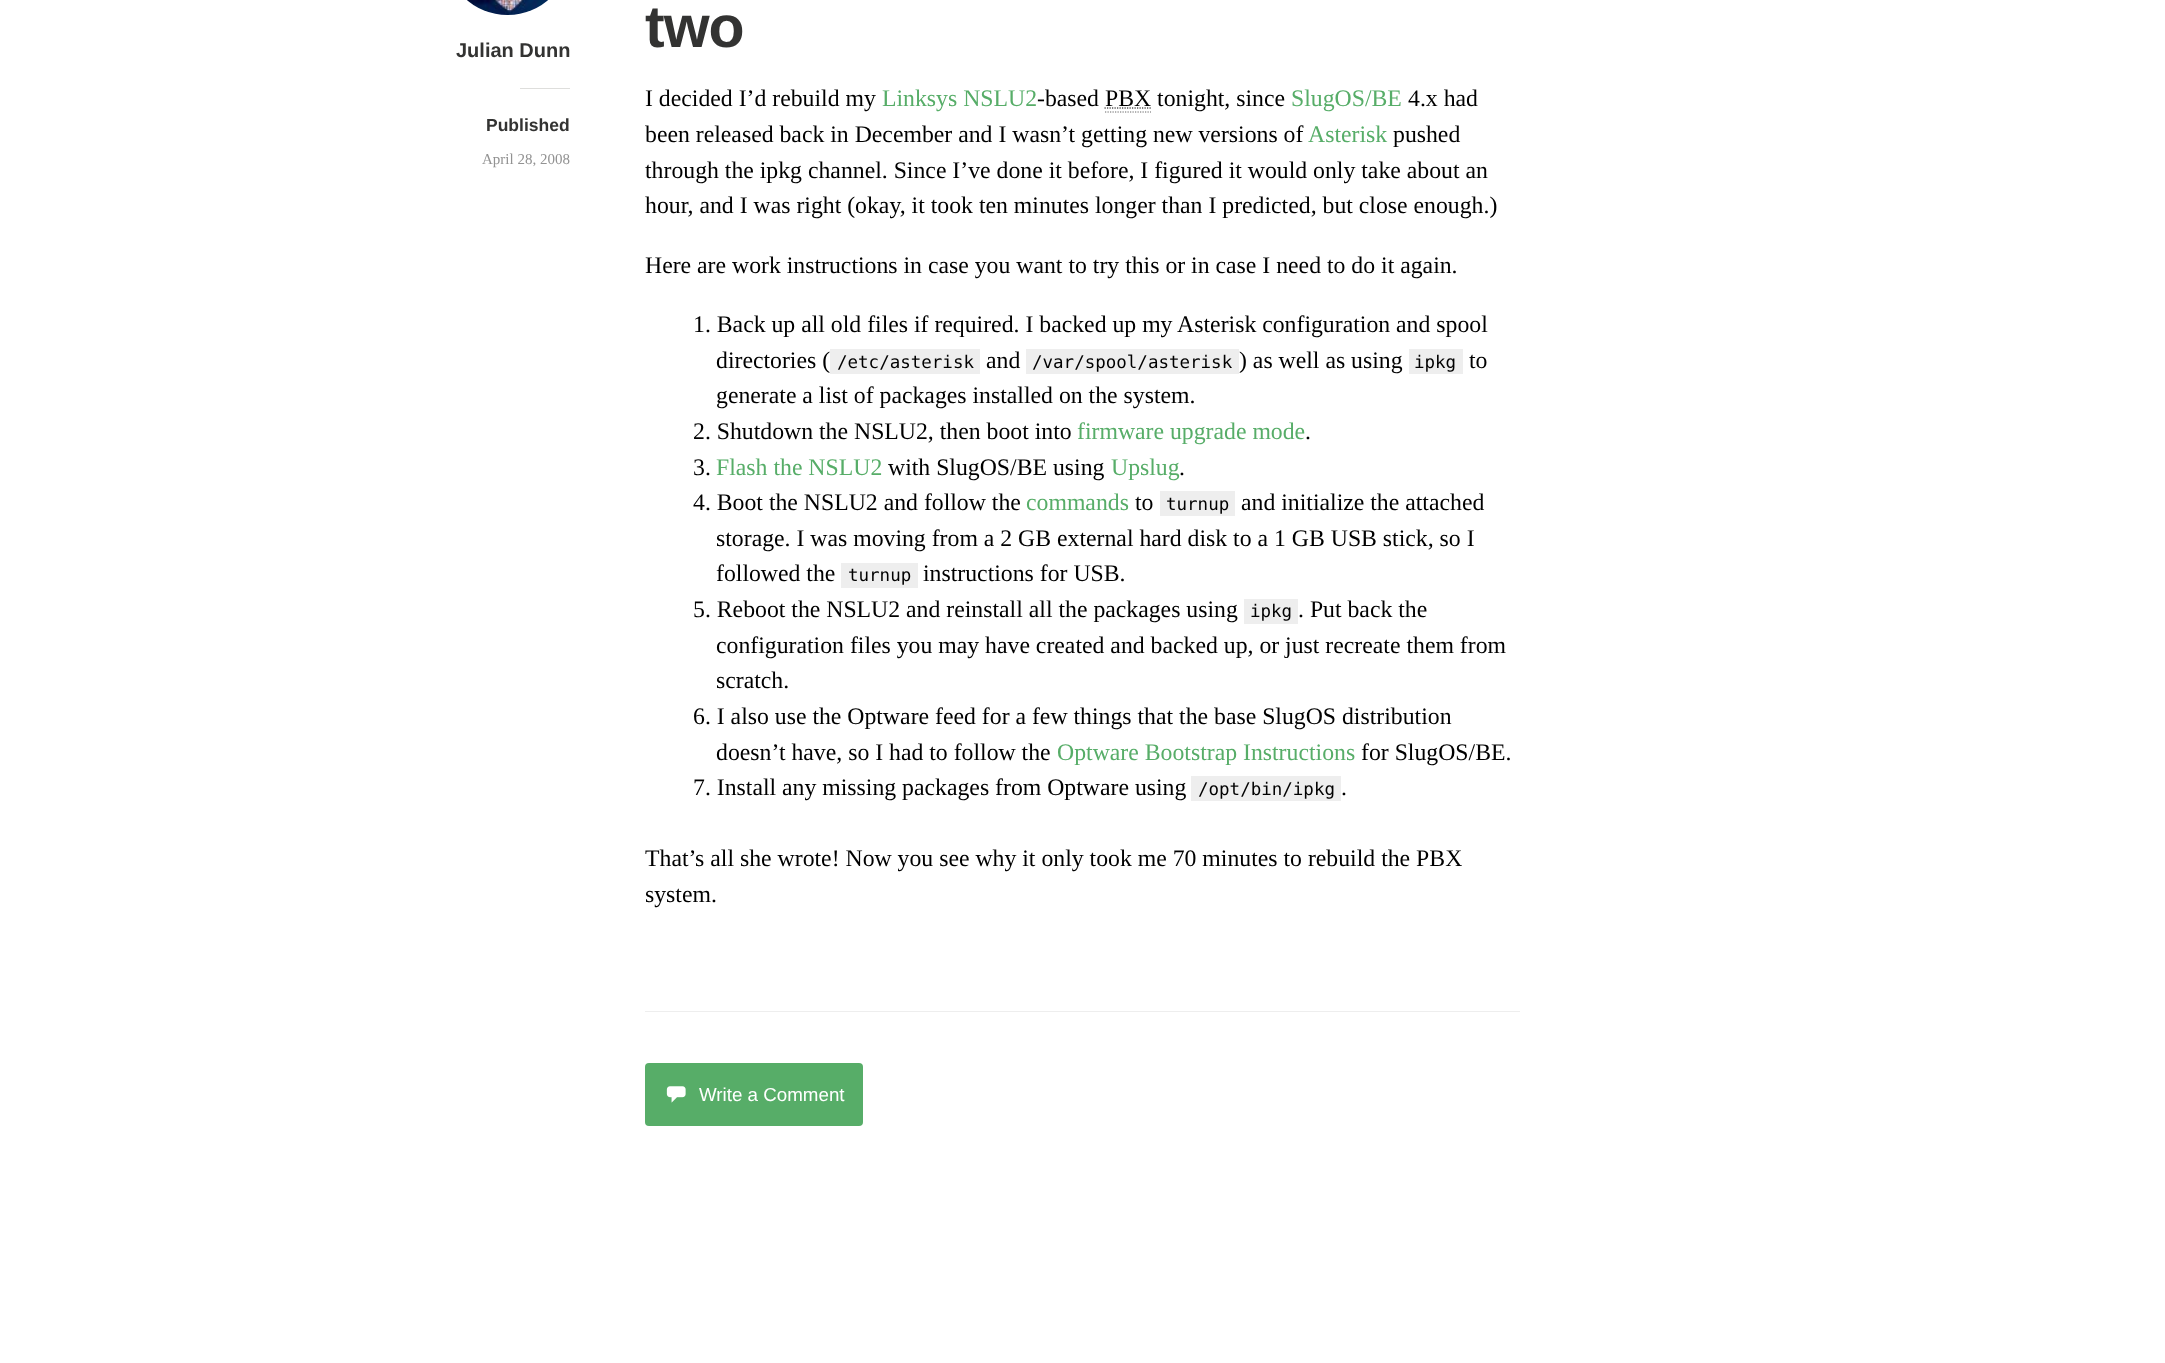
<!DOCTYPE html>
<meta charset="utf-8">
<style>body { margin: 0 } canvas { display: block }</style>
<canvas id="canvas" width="2165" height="1363"></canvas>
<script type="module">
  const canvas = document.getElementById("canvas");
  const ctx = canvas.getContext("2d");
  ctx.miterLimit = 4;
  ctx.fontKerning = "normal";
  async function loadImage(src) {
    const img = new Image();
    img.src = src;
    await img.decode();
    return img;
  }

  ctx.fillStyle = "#ffffff";
  ctx.fillRect(0, 0, 2165, 1363);
  ctx.drawImage(await loadImage("img1.png"), 467, 0, 81, 15);
  ctx.font = "bold 20px Liberation Sans";
  ctx.fillStyle = "#333332";
  ctx.fillText("Julian Dunn", 456, 57);
  ctx.fillStyle = "#dededc";
  ctx.fillRect(520, 88, 50, 1);
  ctx.font = "bold 17.5px Liberation Sans";
  ctx.fillStyle = "#333332";
  ctx.fillText("Published", 486, 131);
  ctx.font = "15px Liberation Serif";
  ctx.fillStyle = "#929292";
  ctx.fillText("April 28, 2008", 482, 164);
  ctx.letterSpacing = "-1px";
  ctx.font = "bold 59px Liberation Sans";
  ctx.fillStyle = "#333332";
  ctx.fillText("two", 645, 47);
  ctx.letterSpacing = "0px";
  ctx.font = "23.75px Liberation Serif";
  ctx.fillStyle = "#000000";
  ctx.fillText("I decided I’d rebuild my", 645, 106);
  ctx.fillStyle = "#57ad68";
  ctx.fillText("Linksys NSLU2", 882, 106);
  ctx.fillStyle = "#000000";
  ctx.fillText("-based PBX tonight, since", 1037, 106);
  ctx.fillStyle = "#57ad68";
  ctx.fillText("SlugOS/BE", 1291, 106);
  ctx.fillStyle = "#000000";
  ctx.fillText("4.x had", 1408, 106);
  ctx.beginPath();
  ctx.moveTo(1104.5, 108);
  ctx.lineTo(1151, 108);
  ctx.strokeStyle = "#000000";
  ctx.lineWidth = 1.2;
  ctx.setLineDash([1.25, 1.25]);
  ctx.stroke();
  ctx.beginPath();
  ctx.moveTo(1105, 112);
  ctx.lineTo(1151, 112);
  ctx.strokeStyle = "#666666";
  ctx.stroke();
  ctx.fillText("been released back in December and I wasn’t getting new versions of", 645, 142);
  ctx.fillStyle = "#57ad68";
  ctx.fillText("Asterisk", 1308, 142);
  ctx.fillStyle = "#000000";
  ctx.fillText("pushed", 1393, 142);
  ctx.fillText("through the ipkg channel. Since I’ve done it before, I figured it would only take about an", 645, 178);
  ctx.fillText("hour, and I was right (okay, it took ten minutes longer than I predicted, but close enough.)", 645, 213);
  ctx.fillText("Here are work instructions in case you want to try this or in case I need to do it again.", 645, 273);
  ctx.fillText("1. Back up all old files if required. I backed up my Asterisk configuration and spool", 693, 332);
  ctx.fillText("directories (", 716, 368);
  ctx.fillStyle = "#eeeeee";
  ctx.fillRect(830, 349, 150, 25);
  ctx.font = "17.5px DejaVu Sans Mono";
  ctx.fillStyle = "#000000";
  ctx.fillText("/etc/asterisk", 837, 368);
  ctx.font = "23.75px Liberation Serif";
  ctx.fillText("and", 986, 368);
  ctx.fillStyle = "#eeeeee";
  ctx.fillRect(1026, 349, 213, 25);
  ctx.font = "17.5px DejaVu Sans Mono";
  ctx.fillStyle = "#000000";
  ctx.fillText("/var/spool/asterisk", 1032, 368);
  ctx.font = "23.75px Liberation Serif";
  ctx.fillText(") as well as using", 1239, 368);
  ctx.fillStyle = "#eeeeee";
  ctx.fillRect(1409, 349, 54, 25);
  ctx.font = "17.5px DejaVu Sans Mono";
  ctx.fillStyle = "#000000";
  ctx.fillText("ipkg", 1414, 368);
  ctx.font = "23.75px Liberation Serif";
  ctx.fillText("to", 1469, 368);
  ctx.fillText("generate a list of packages installed on the system.", 716, 403);
  ctx.fillText("2. Shutdown the NSLU2, then boot into", 693, 439);
  ctx.fillStyle = "#57ad68";
  ctx.fillText("firmware upgrade mode", 1077, 439);
  ctx.fillStyle = "#000000";
  ctx.fillText(".", 1305, 439);
  ctx.fillText("3.", 693, 475);
  ctx.fillStyle = "#57ad68";
  ctx.fillText("Flash the NSLU2", 716, 475);
  ctx.fillStyle = "#000000";
  ctx.fillText("with SlugOS/BE using", 888, 475);
  ctx.fillStyle = "#57ad68";
  ctx.fillText("Upslug", 1111, 475);
  ctx.fillStyle = "#000000";
  ctx.fillText(".", 1179, 475);
  ctx.fillText("4. Boot the NSLU2 and follow the", 693, 510);
  ctx.fillStyle = "#57ad68";
  ctx.fillText("commands", 1026, 510);
  ctx.fillStyle = "#000000";
  ctx.fillText("to", 1135, 510);
  ctx.fillStyle = "#eeeeee";
  ctx.fillRect(1160, 491, 75, 25);
  ctx.font = "17.5px DejaVu Sans Mono";
  ctx.fillStyle = "#000000";
  ctx.fillText("turnup", 1166, 510);
  ctx.font = "23.75px Liberation Serif";
  ctx.fillText("and initialize the attached", 1241, 510);
  ctx.fillText("storage. I was moving from a 2 GB external hard disk to a 1 GB USB stick, so I", 716, 546);
  ctx.fillText("followed the", 716, 581);
  ctx.fillStyle = "#eeeeee";
  ctx.fillRect(841, 563, 77, 25);
  ctx.font = "17.5px DejaVu Sans Mono";
  ctx.fillStyle = "#000000";
  ctx.fillText("turnup", 848, 581);
  ctx.font = "23.75px Liberation Serif";
  ctx.fillText("instructions for USB.", 923, 581);
  ctx.fillText("5. Reboot the NSLU2 and reinstall all the packages using", 693, 617);
  ctx.fillStyle = "#eeeeee";
  ctx.fillRect(1244, 599, 54, 25);
  ctx.font = "17.5px DejaVu Sans Mono";
  ctx.fillStyle = "#000000";
  ctx.fillText("ipkg", 1250, 617);
  ctx.font = "23.75px Liberation Serif";
  ctx.fillText(". Put back the", 1298, 617);
  ctx.fillText("configuration files you may have created and backed up, or just recreate them from", 716, 653);
  ctx.fillText("scratch.", 716, 688);
  ctx.fillText("6. I also use the Optware feed for a few things that the base SlugOS distribution", 693, 724);
  ctx.fillText("doesn’t have, so I had to follow the", 716, 760);
  ctx.fillStyle = "#57ad68";
  ctx.fillText("Optware Bootstrap Instructions", 1057, 760);
  ctx.fillStyle = "#000000";
  ctx.fillText("for SlugOS/BE.", 1361, 760);
  ctx.fillText("7. Install any missing packages from Optware using", 693, 795);
  ctx.fillStyle = "#eeeeee";
  ctx.fillRect(1191, 776, 150, 25);
  ctx.font = "17.5px DejaVu Sans Mono";
  ctx.fillStyle = "#000000";
  ctx.fillText("/opt/bin/ipkg", 1198, 795);
  ctx.font = "23.75px Liberation Serif";
  ctx.fillText(".", 1341, 795);
  ctx.fillText("That’s all she wrote! Now you see why it only took me 70 minutes to rebuild the PBX", 645, 866);
  ctx.fillText("system.", 645, 902);
  ctx.fillStyle = "#eeeeee";
  ctx.fillRect(645, 1011, 875, 1);
  ctx.fillStyle = "#57ad68";
  ctx.beginPath();
  ctx.roundRect(645, 1063, 218, 63, 4);
  ctx.fill();
  ctx.drawImage(await loadImage("img2.png"), 666, 1086, 20, 17);
  ctx.font = "18.75px Liberation Sans";
  ctx.fillStyle = "#ffffff";
  ctx.fillText("Write a Comment", 699, 1101);
</script>
